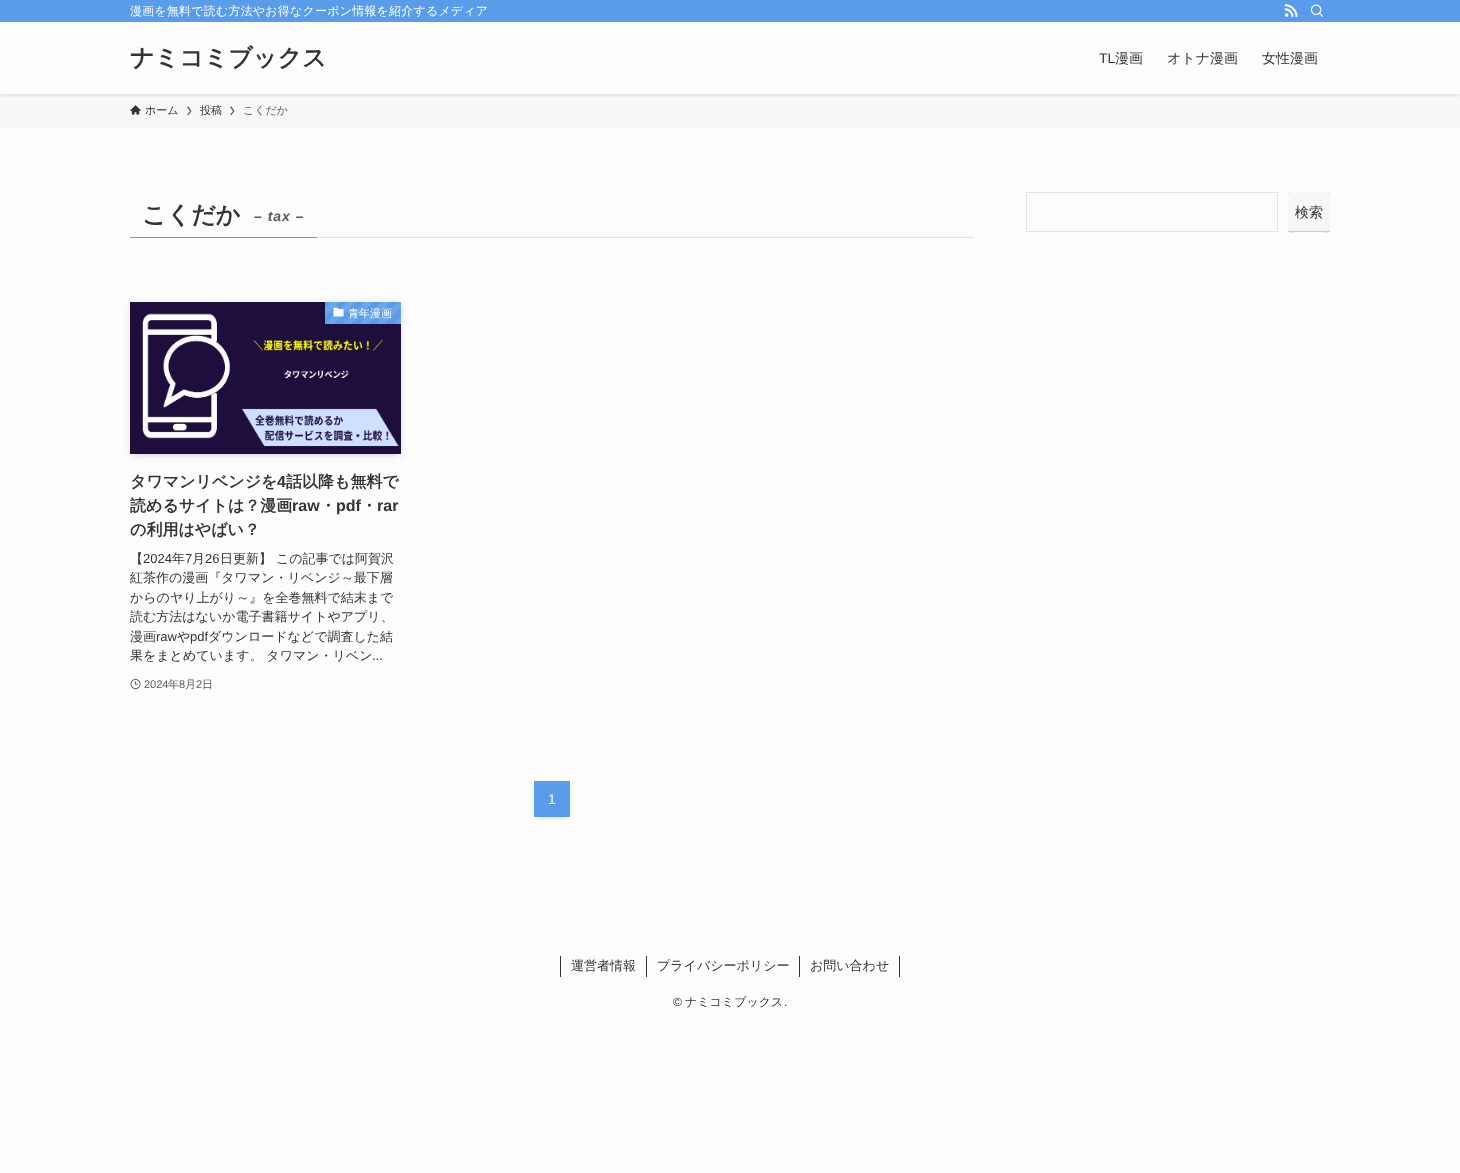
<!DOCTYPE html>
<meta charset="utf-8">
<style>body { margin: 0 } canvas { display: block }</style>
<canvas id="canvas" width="1460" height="1173"></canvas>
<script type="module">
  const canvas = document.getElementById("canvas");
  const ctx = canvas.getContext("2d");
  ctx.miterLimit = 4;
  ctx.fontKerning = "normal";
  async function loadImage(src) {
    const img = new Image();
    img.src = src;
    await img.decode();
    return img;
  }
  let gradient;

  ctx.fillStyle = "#fdfdfd";
  ctx.fillRect(0, 0, 1460, 1173);
  ctx.fillStyle = "#f7f7f7";
  ctx.fillRect(0, 94, 1460, 34);
  ctx.save();
  ctx.beginPath();
  ctx.rect(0, 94, 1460, 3);
  ctx.clip();
  ctx.fillStyle = "rgba(0, 0, 0, 0.12)";
  ctx.filter = "blur(2px)";
  ctx.beginPath();
  ctx.rect(0, 1, 1460, 94);
  ctx.fill();
  ctx.filter = "none";
  ctx.restore();
  ctx.fillStyle = "#599dea";
  ctx.fillRect(0, 0, 1460, 22);
  ctx.letterSpacing = "0.2px";
  ctx.font = "500 12px WenQuanYi Zen Hei";
  ctx.fillStyle = "#ffffff";
  ctx.fillText("漫画を無料で読む方法やお得なクーポン情報を紹介するメディア", 130, 15);
  ctx.drawImage(await loadImage("img1.png"), 1284, 4, 14, 13);
  ctx.drawImage(await loadImage("img2.png"), 1310, 4, 14, 13);
  ctx.letterSpacing = "0px";
  ctx.font = "bold 24px WenQuanYi Zen Hei";
  ctx.fillStyle = "#333333";
  ctx.fillText("ナミコミブックス", 130, 66);
  ctx.font = "14px Liberation Sans";
  ctx.fillText("TL", 1099, 63);
  ctx.font = "500 14px WenQuanYi Zen Hei";
  ctx.fillText("漫画", 1115, 63);
  ctx.fillText("オトナ漫画", 1167, 63);
  ctx.fillText("女性漫画", 1262, 63);
  ctx.drawImage(await loadImage("img3.png"), 130, 105, 11, 10);
  ctx.font = "500 11px WenQuanYi Zen Hei";
  ctx.fillText("ホーム", 145, 114);
  ctx.fillStyle = "#5a5a5a";
  ctx.beginPath();
  ctx.moveTo(188.5, 106.5);
  ctx.lineTo(187, 107);
  ctx.lineTo(190, 111);
  ctx.lineTo(187, 115);
  ctx.lineTo(188.5, 115);
  ctx.lineTo(191.5, 111);
  ctx.closePath();
  ctx.fill();
  ctx.fillStyle = "#333333";
  ctx.fillText("投稿", 200, 114);
  ctx.fillStyle = "#5a5a5a";
  ctx.beginPath();
  ctx.moveTo(231.5, 106.5);
  ctx.lineTo(230, 107);
  ctx.lineTo(233, 111);
  ctx.lineTo(230, 115);
  ctx.lineTo(231.5, 115);
  ctx.lineTo(234.5, 111);
  ctx.closePath();
  ctx.fill();
  ctx.fillText("こくだか", 243, 114);
  ctx.fillStyle = "#e2e2e2";
  ctx.fillRect(317, 237, 657, 1);
  ctx.fillStyle = "#599dea";
  ctx.fillRect(130, 237, 187, 1);
  ctx.font = "bold 24px WenQuanYi Zen Hei";
  ctx.fillStyle = "#333333";
  ctx.fillText("こくだか", 142, 223);
  ctx.letterSpacing = "1px";
  ctx.font = "italic bold 14px Liberation Sans";
  ctx.fillStyle = "#5a5a5a";
  ctx.fillText("– tax –", 254, 221);
  ctx.fillStyle = "rgba(0, 0, 0, 0.1)";
  ctx.filter = "blur(2px)";
  ctx.beginPath();
  ctx.rect(134, 310, 263, 144);
  ctx.fill();
  ctx.filter = "none";
  ctx.filter = "blur(4px)";
  ctx.beginPath();
  ctx.rect(130, 304, 271, 152);
  ctx.fill();
  ctx.filter = "none";
  ctx.drawImage(await loadImage("img4.png"), 130, 302, 271, 152);
  gradient = ctx.createLinearGradient(388, 338, 337, 287);
  gradient.addColorStop(0, "#6aa7ec");
  gradient.addColorStop(0.08, "#6aa7ec");
  gradient.addColorStop(0.08, "#599dea");
  gradient.addColorStop(0.17, "#599dea");
  gradient.addColorStop(0.17, "#6aa7ec");
  gradient.addColorStop(0.25, "#6aa7ec");
  gradient.addColorStop(0.25, "#599dea");
  gradient.addColorStop(0.33, "#599dea");
  gradient.addColorStop(0.33, "#6aa7ec");
  gradient.addColorStop(0.42, "#6aa7ec");
  gradient.addColorStop(0.42, "#599dea");
  gradient.addColorStop(0.5, "#599dea");
  gradient.addColorStop(0.5, "#6aa7ec");
  gradient.addColorStop(0.58, "#6aa7ec");
  gradient.addColorStop(0.58, "#599dea");
  gradient.addColorStop(0.67, "#599dea");
  gradient.addColorStop(0.67, "#6aa7ec");
  gradient.addColorStop(0.75, "#6aa7ec");
  gradient.addColorStop(0.75, "#599dea");
  gradient.addColorStop(0.83, "#599dea");
  gradient.addColorStop(0.83, "#6aa7ec");
  gradient.addColorStop(0.92, "#6aa7ec");
  gradient.addColorStop(0.92, "#599dea");
  gradient.addColorStop(1, "#599dea");
  ctx.fillStyle = gradient;
  ctx.fillRect(325, 302, 76, 22);
  ctx.drawImage(await loadImage("img5.png"), 333, 307, 11, 10);
  ctx.letterSpacing = "0px";
  ctx.font = "500 11px WenQuanYi Zen Hei";
  ctx.fillStyle = "#ffffff";
  ctx.fillText("青年漫画", 348, 317);
  ctx.font = "bold 16px WenQuanYi Zen Hei";
  ctx.fillStyle = "#333333";
  ctx.fillText("タワマンリベンジを", 130, 487);
  ctx.font = "bold 16px Liberation Sans";
  ctx.fillText("4", 277, 487);
  ctx.font = "bold 16px WenQuanYi Zen Hei";
  ctx.fillText("話以降も無料で", 286, 487);
  ctx.fillText("読めるサイトは？漫画", 130, 511);
  ctx.font = "bold 16px Liberation Sans";
  ctx.fillText("raw", 292, 511);
  ctx.font = "bold 16px WenQuanYi Zen Hei";
  ctx.fillText("・", 320, 511);
  ctx.font = "bold 16px Liberation Sans";
  ctx.fillText("pdf", 336, 511);
  ctx.font = "bold 16px WenQuanYi Zen Hei";
  ctx.fillText("・", 361, 511);
  ctx.font = "bold 16px Liberation Sans";
  ctx.fillText("rar", 377, 511);
  ctx.font = "bold 16px WenQuanYi Zen Hei";
  ctx.fillText("の利用はやばい？", 130, 535);
  ctx.font = "500 13px WenQuanYi Zen Hei";
  ctx.fillText("【", 130, 563);
  ctx.font = "13px Liberation Sans";
  ctx.fillText("2024", 143, 563);
  ctx.font = "500 13px WenQuanYi Zen Hei";
  ctx.fillText("年", 172, 563);
  ctx.font = "13px Liberation Sans";
  ctx.fillText("7", 185, 563);
  ctx.font = "500 13px WenQuanYi Zen Hei";
  ctx.fillText("月", 192, 563);
  ctx.font = "13px Liberation Sans";
  ctx.fillText("26", 205, 563);
  ctx.font = "500 13px WenQuanYi Zen Hei";
  ctx.fillText("日更新】 この記事では阿賀沢", 220, 563);
  ctx.fillText("紅茶作の漫画『タワマン・リベンジ～最下層", 130, 582);
  ctx.fillText("からのヤり上がり～』を全巻無料で結末まで", 130, 602);
  ctx.fillText("読む方法はないか電子書籍サイトやアプリ、", 130, 621);
  ctx.fillText("漫画", 130, 641);
  ctx.font = "13px Liberation Sans";
  ctx.fillText("raw", 156, 641);
  ctx.font = "500 13px WenQuanYi Zen Hei";
  ctx.fillText("や", 177, 641);
  ctx.font = "13px Liberation Sans";
  ctx.fillText("pdf", 190, 641);
  ctx.font = "500 13px WenQuanYi Zen Hei";
  ctx.fillText("ダウンロードなどで調査した結", 208, 641);
  ctx.fillText("果をまとめています。 タワマン・リベン", 130, 660);
  ctx.font = "13px Liberation Sans";
  ctx.fillText("...", 372, 660);
  ctx.drawImage(await loadImage("img6.png"), 130, 679, 11, 11);
  ctx.font = "11px Liberation Sans";
  ctx.fillStyle = "#5a5a5a";
  ctx.fillText("2024", 144, 688);
  ctx.font = "500 11px WenQuanYi Zen Hei";
  ctx.fillText("年", 168, 688);
  ctx.font = "11px Liberation Sans";
  ctx.fillText("8", 179, 688);
  ctx.font = "500 11px WenQuanYi Zen Hei";
  ctx.fillText("月", 185, 688);
  ctx.font = "11px Liberation Sans";
  ctx.fillText("2", 196, 688);
  ctx.font = "500 11px WenQuanYi Zen Hei";
  ctx.fillText("日", 202, 688);
  ctx.fillStyle = "rgba(0, 0, 0, 0.1)";
  ctx.filter = "blur(2px)";
  ctx.beginPath();
  ctx.rect(538, 789, 28, 28);
  ctx.fill();
  ctx.filter = "none";
  ctx.fillStyle = "rgba(0, 0, 0, 0.05)";
  ctx.filter = "blur(2px)";
  ctx.beginPath();
  ctx.rect(534, 783, 36, 36);
  ctx.fill();
  ctx.filter = "none";
  ctx.fillStyle = "#599dea";
  ctx.fillRect(534, 781, 36, 36);
  ctx.font = "14px Liberation Sans";
  ctx.fillStyle = "#ffffff";
  ctx.fillText("1", 548, 804);
  ctx.strokeStyle = "#e2e2e2";
  ctx.strokeRect(1026.5, 192.5, 251, 39);
  ctx.fillStyle = "#aaaaaa";
  ctx.filter = "blur(0.5px)";
  ctx.beginPath();
  ctx.roundRect(1288, 192, 42, 40, 2);
  ctx.fill();
  ctx.filter = "none";
  ctx.fillStyle = "#f7f7f7";
  ctx.beginPath();
  ctx.roundRect(1288, 192, 42, 40, 2);
  ctx.fill();
  ctx.fillStyle = "#cccccc";
  ctx.beginPath();
  ctx.moveTo(1288, 229);
  ctx.bezierCurveTo(1288, 234, 1293, 232, 1296, 232);
  ctx.lineTo(1322, 232);
  ctx.bezierCurveTo(1325, 232, 1330, 234, 1330, 229);
  ctx.bezierCurveTo(1330, 230, 1329, 231, 1328, 231);
  ctx.lineTo(1290, 231);
  ctx.bezierCurveTo(1289, 231, 1288, 230, 1288, 229);
  ctx.closePath();
  ctx.fill();
  ctx.font = "500 14px WenQuanYi Zen Hei";
  ctx.fillStyle = "#333333";
  ctx.fillText("検索", 1295, 217);
  ctx.fillRect(646, 956, 1, 21);
  ctx.fillRect(560, 956, 1, 21);
  ctx.font = "500 13px WenQuanYi Zen Hei";
  ctx.fillText("運営者情報", 571, 970);
  ctx.fillRect(799, 956, 1, 21);
  ctx.fillText("プライバシーポリシー", 657, 970);
  ctx.fillRect(899, 956, 1, 21);
  ctx.fillText("お問い合わせ", 810, 970);
  ctx.font = "12px Liberation Sans";
  ctx.fillText("©", 673, 1006);
  ctx.font = "500 12px WenQuanYi Zen Hei";
  ctx.fillText("ナミコミブックス", 685, 1006);
  ctx.font = "12px Liberation Sans";
  ctx.fillText(".", 784, 1006);
</script>
